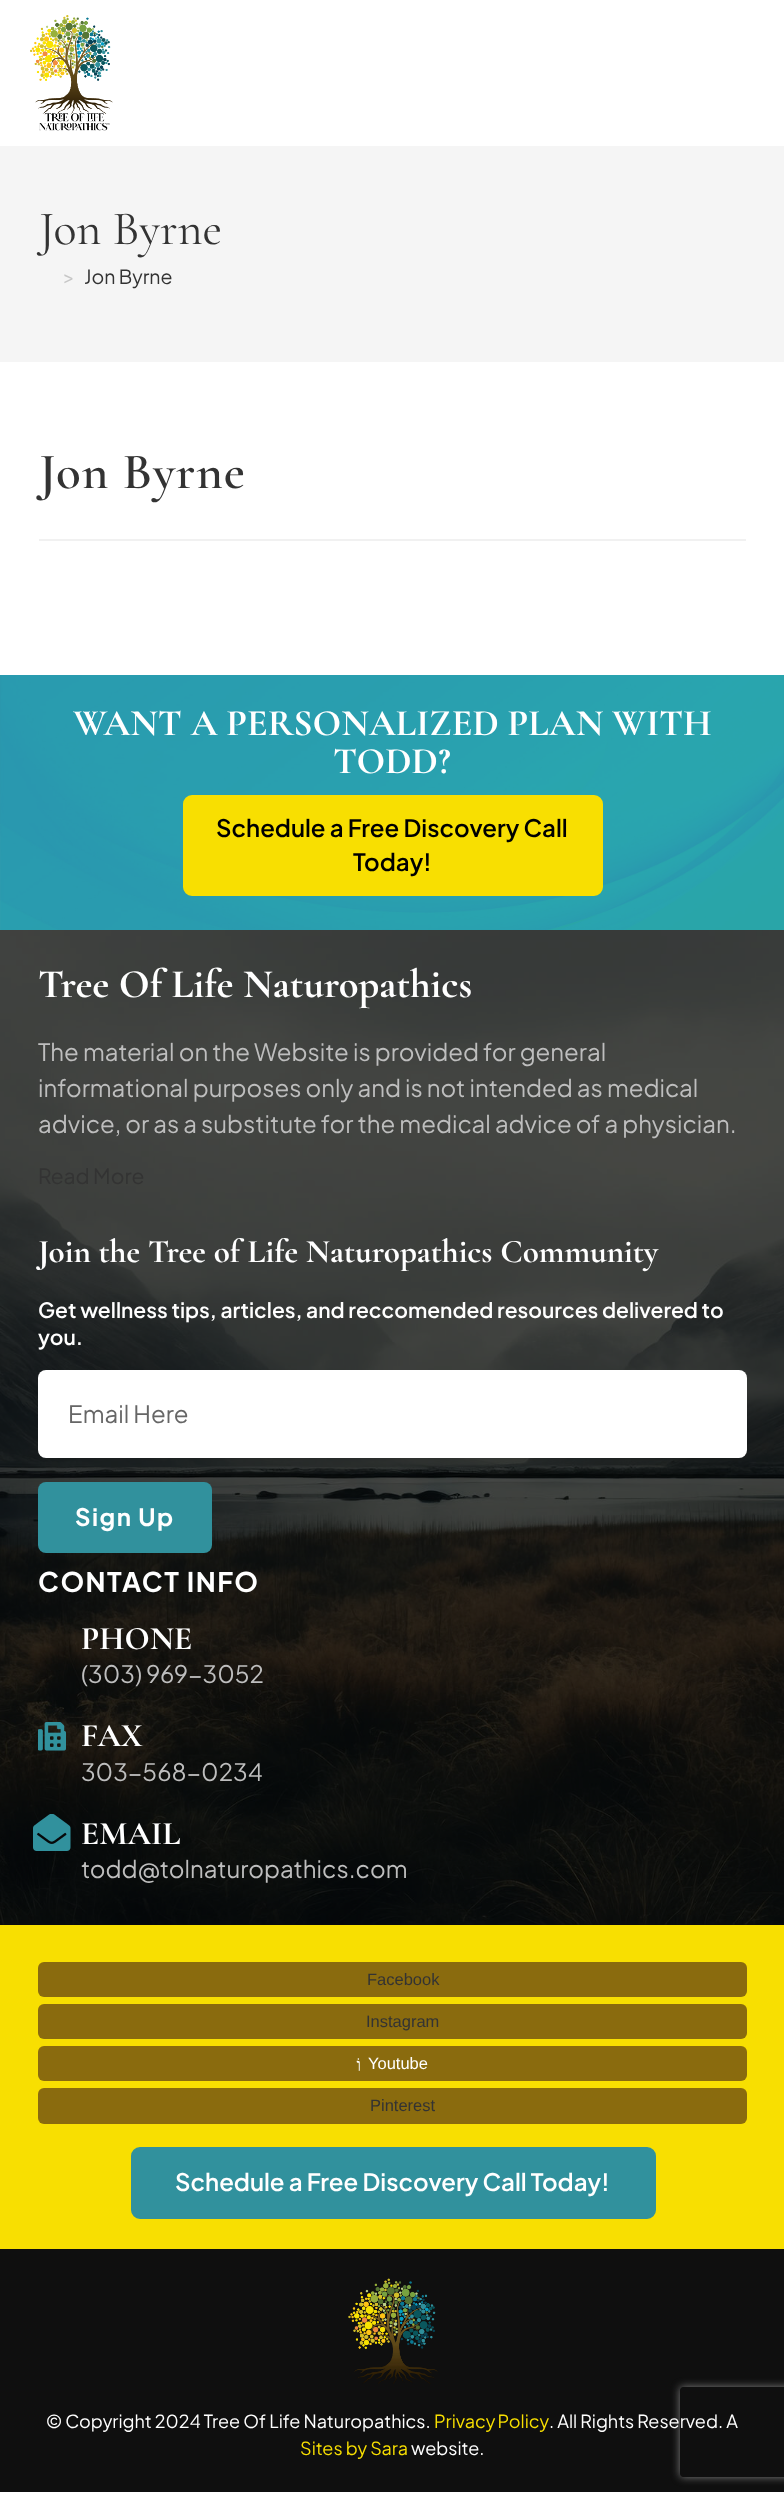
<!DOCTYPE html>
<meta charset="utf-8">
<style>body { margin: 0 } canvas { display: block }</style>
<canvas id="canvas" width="784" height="2497"></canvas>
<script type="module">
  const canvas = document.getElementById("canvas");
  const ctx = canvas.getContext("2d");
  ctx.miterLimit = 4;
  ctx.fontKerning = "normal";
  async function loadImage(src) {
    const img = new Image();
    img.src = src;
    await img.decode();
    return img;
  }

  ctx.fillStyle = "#ffffff";
  ctx.fillRect(0, 0, 784, 2497);
  ctx.drawImage(await loadImage("img1.png"), 30, 15, 83, 116);
  ctx.fillStyle = "#f5f5f5";
  ctx.fillRect(0, 146, 784, 216);
  ctx.font = "48px Cormorant Garamond";
  ctx.fillStyle = "#333333";
  ctx.fillText("Jon Byrne", 39, 244);
  ctx.font = "19.5px Plus Jakarta Sans";
  ctx.fillStyle = "#c6c6c6";
  ctx.fillText(">", 63, 284);
  ctx.fillStyle = "#333333";
  ctx.fillText("Jon Byrne", 84, 284);
  ctx.fillStyle = "#f1f1f1";
  ctx.fillRect(39, 539, 707, 2);
  ctx.letterSpacing = "1px";
  ctx.font = "600 51px Cormorant Garamond";
  ctx.fillStyle = "#333333";
  ctx.fillText("Jon Byrne", 39, 488);
  ctx.drawImage(await loadImage("img2.png"), 0, 675, 784, 255);
  ctx.letterSpacing = "0px";
  ctx.font = "bold 37.5px Cormorant Garamond";
  ctx.fillStyle = "#ffffff";
  ctx.fillText("WANT A PERSONALIZED PLAN WITH", 73, 735);
  ctx.fillText("TODD?", 333, 773);
  ctx.fillStyle = "#f8df01";
  ctx.beginPath();
  ctx.roundRect(184, 796, 418, 99, 8);
  ctx.fill();
  ctx.strokeStyle = "#f8df01";
  ctx.lineWidth = 2;
  ctx.stroke();
  ctx.font = "600 24px Plus Jakarta Sans";
  ctx.fillStyle = "#000000";
  ctx.fillText("Schedule a Free Discovery Call", 216, 837);
  ctx.fillText("Today!", 353, 871);
  ctx.fillStyle = "#0b090a";
  ctx.fillRect(0, 1924, 784, 1);
  ctx.drawImage(await loadImage("img3.png"), 0, 930, 784, 995);
  ctx.font = "bold 40.5px Cormorant Garamond";
  ctx.fillStyle = "#ffffff";
  ctx.fillText("Tree Of Life Naturopathics", 38, 997);
  ctx.font = "24px Plus Jakarta Sans";
  ctx.fillStyle = "#bebebe";
  ctx.fillText("The material on the Website is provided for general", 38, 1061);
  ctx.fillText("informational purposes only and is not intended as medical", 38, 1097);
  ctx.fillText("advice, or as a substitute for the medical advice of a physician.", 38, 1133);
  ctx.font = "21px Plus Jakarta Sans";
  ctx.fillStyle = "#333333";
  ctx.fillText("Read More", 38, 1184);
  ctx.font = "bold 33px Cormorant Garamond";
  ctx.fillStyle = "#ffffff";
  ctx.fillText("Join the Tree of Life Naturopathics Community", 38, 1262);
  ctx.font = "600 21px Plus Jakarta Sans";
  ctx.fillText("Get wellness tips, articles, and reccomended resources delivered to", 38, 1318);
  ctx.fillText("you.", 38, 1345);
  ctx.beginPath();
  ctx.roundRect(38, 1370, 709, 88, 8);
  ctx.fill();
  ctx.font = "24px Plus Jakarta Sans";
  ctx.fillStyle = "#666666";
  ctx.fillText("Email Here", 68, 1423);
  ctx.fillStyle = "#31919d";
  ctx.beginPath();
  ctx.roundRect(38, 1482, 174, 71, 8);
  ctx.fill();
  ctx.letterSpacing = "1.5px";
  ctx.font = "bold 24px Plus Jakarta Sans";
  ctx.fillStyle = "#ffffff";
  ctx.fillText("Sign Up", 75, 1526);
  ctx.fillStyle = "#0f0f0f";
  ctx.fillRect(0, 2249, 784, 243);
  ctx.save();
  ctx.beginPath();
  ctx.moveTo(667, 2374);
  ctx.lineTo(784, 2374);
  ctx.lineTo(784, 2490);
  ctx.lineTo(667, 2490);
  ctx.closePath();
  ctx.moveTo(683, 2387);
  ctx.lineTo(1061, 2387);
  ctx.bezierCurveTo(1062.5, 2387, 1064, 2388.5, 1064, 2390);
  ctx.lineTo(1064, 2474);
  ctx.bezierCurveTo(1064, 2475.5, 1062.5, 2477, 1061, 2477);
  ctx.lineTo(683, 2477);
  ctx.bezierCurveTo(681.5, 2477, 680, 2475.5, 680, 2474);
  ctx.lineTo(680, 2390);
  ctx.bezierCurveTo(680, 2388.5, 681.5, 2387, 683, 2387);
  ctx.closePath();
  ctx.clip("evenodd");
  ctx.fillStyle = "#808080";
  ctx.filter = "blur(4px)";
  ctx.beginPath();
  ctx.roundRect(680, 2387, 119, 90, 3);
  ctx.fill();
  ctx.filter = "none";
  ctx.restore();
  ctx.font = "bold 27px Plus Jakarta Sans";
  ctx.fillStyle = "#ffffff";
  ctx.fillText("CONTACT INFO", 38, 1592);
  ctx.letterSpacing = "0px";
  ctx.font = "bold 33px Cormorant Garamond";
  ctx.fillText("PHONE", 81, 1649);
  ctx.font = "24px Plus Jakarta Sans";
  ctx.fillStyle = "#bebebe";
  ctx.fillText("(303) 969-3052", 81, 1683);
  ctx.drawImage(await loadImage("img4.png"), 38, 1722, 28, 29);
  ctx.font = "bold 33px Cormorant Garamond";
  ctx.fillStyle = "#ffffff";
  ctx.fillText("FAX", 81, 1746);
  ctx.font = "24px Plus Jakarta Sans";
  ctx.fillStyle = "#bebebe";
  ctx.fillText("303-568-0234", 81, 1781);
  ctx.drawImage(await loadImage("img5.png"), 33, 1814, 38, 37);
  ctx.font = "bold 33px Cormorant Garamond";
  ctx.fillStyle = "#ffffff";
  ctx.fillText("EMAIL", 81, 1844);
  ctx.font = "24px Plus Jakarta Sans";
  ctx.fillStyle = "#bebebe";
  ctx.fillText("todd@tolnaturopathics.com", 81, 1878);
  ctx.fillStyle = "#f8df01";
  ctx.fillRect(0, 1925, 784, 324);
  ctx.fillStyle = "#8a6b0e";
  ctx.beginPath();
  ctx.roundRect(38, 1962, 709, 35, 6);
  ctx.fill();
  ctx.font = "16.5px Liberation Sans";
  ctx.fillStyle = "#333333";
  ctx.fillText("Facebook", 367, 1985);
  ctx.fillStyle = "#8a6b0e";
  ctx.beginPath();
  ctx.roundRect(38, 2004, 709, 35, 6);
  ctx.fill();
  ctx.fillStyle = "#333333";
  ctx.fillText("Instagram", 366, 2027);
  ctx.fillStyle = "#8a6b0e";
  ctx.beginPath();
  ctx.roundRect(38, 2046, 709, 35, 6);
  ctx.fill();
  ctx.direction = "rtl";
  ctx.font = "18px Liberation Serif";
  ctx.fillStyle = "#ffffff";
  ctx.fillText("וֹ", 361, 2071);
  ctx.direction = "ltr";
  ctx.font = "16.5px Liberation Sans";
  ctx.fillText("Youtube", 368, 2069);
  ctx.fillStyle = "#8a6b0e";
  ctx.beginPath();
  ctx.roundRect(38, 2088, 709, 36, 6);
  ctx.fill();
  ctx.fillStyle = "#333333";
  ctx.fillText("Pinterest", 370, 2111);
  ctx.fillStyle = "#31919d";
  ctx.beginPath();
  ctx.roundRect(132, 2148, 523, 70, 8);
  ctx.fill();
  ctx.strokeStyle = "#31919d";
  ctx.stroke();
  ctx.font = "600 24px Plus Jakarta Sans";
  ctx.fillStyle = "#ffffff";
  ctx.fillText("Schedule a Free Discovery Call Today!", 175, 2191);
  ctx.drawImage(await loadImage("img6.png"), 348, 2278, 90, 106);
  ctx.font = "18px Plus Jakarta Sans";
  ctx.fillText("© Copyright 2024 Tree Of Life Naturopathics.", 46, 2428);
  ctx.wordSpacing = "-1px";
  ctx.fillStyle = "#f8df01";
  ctx.fillText("Privacy Policy", 434, 2428);
  ctx.wordSpacing = "0px";
  ctx.fillStyle = "#ffffff";
  ctx.fillText(". All Rights Reserved. A", 549, 2428);
  ctx.fillStyle = "#f8df01";
  ctx.fillText("Sites by Sara", 300, 2455);
  ctx.fillStyle = "#ffffff";
  ctx.fillText("website.", 411, 2455);
</script>
